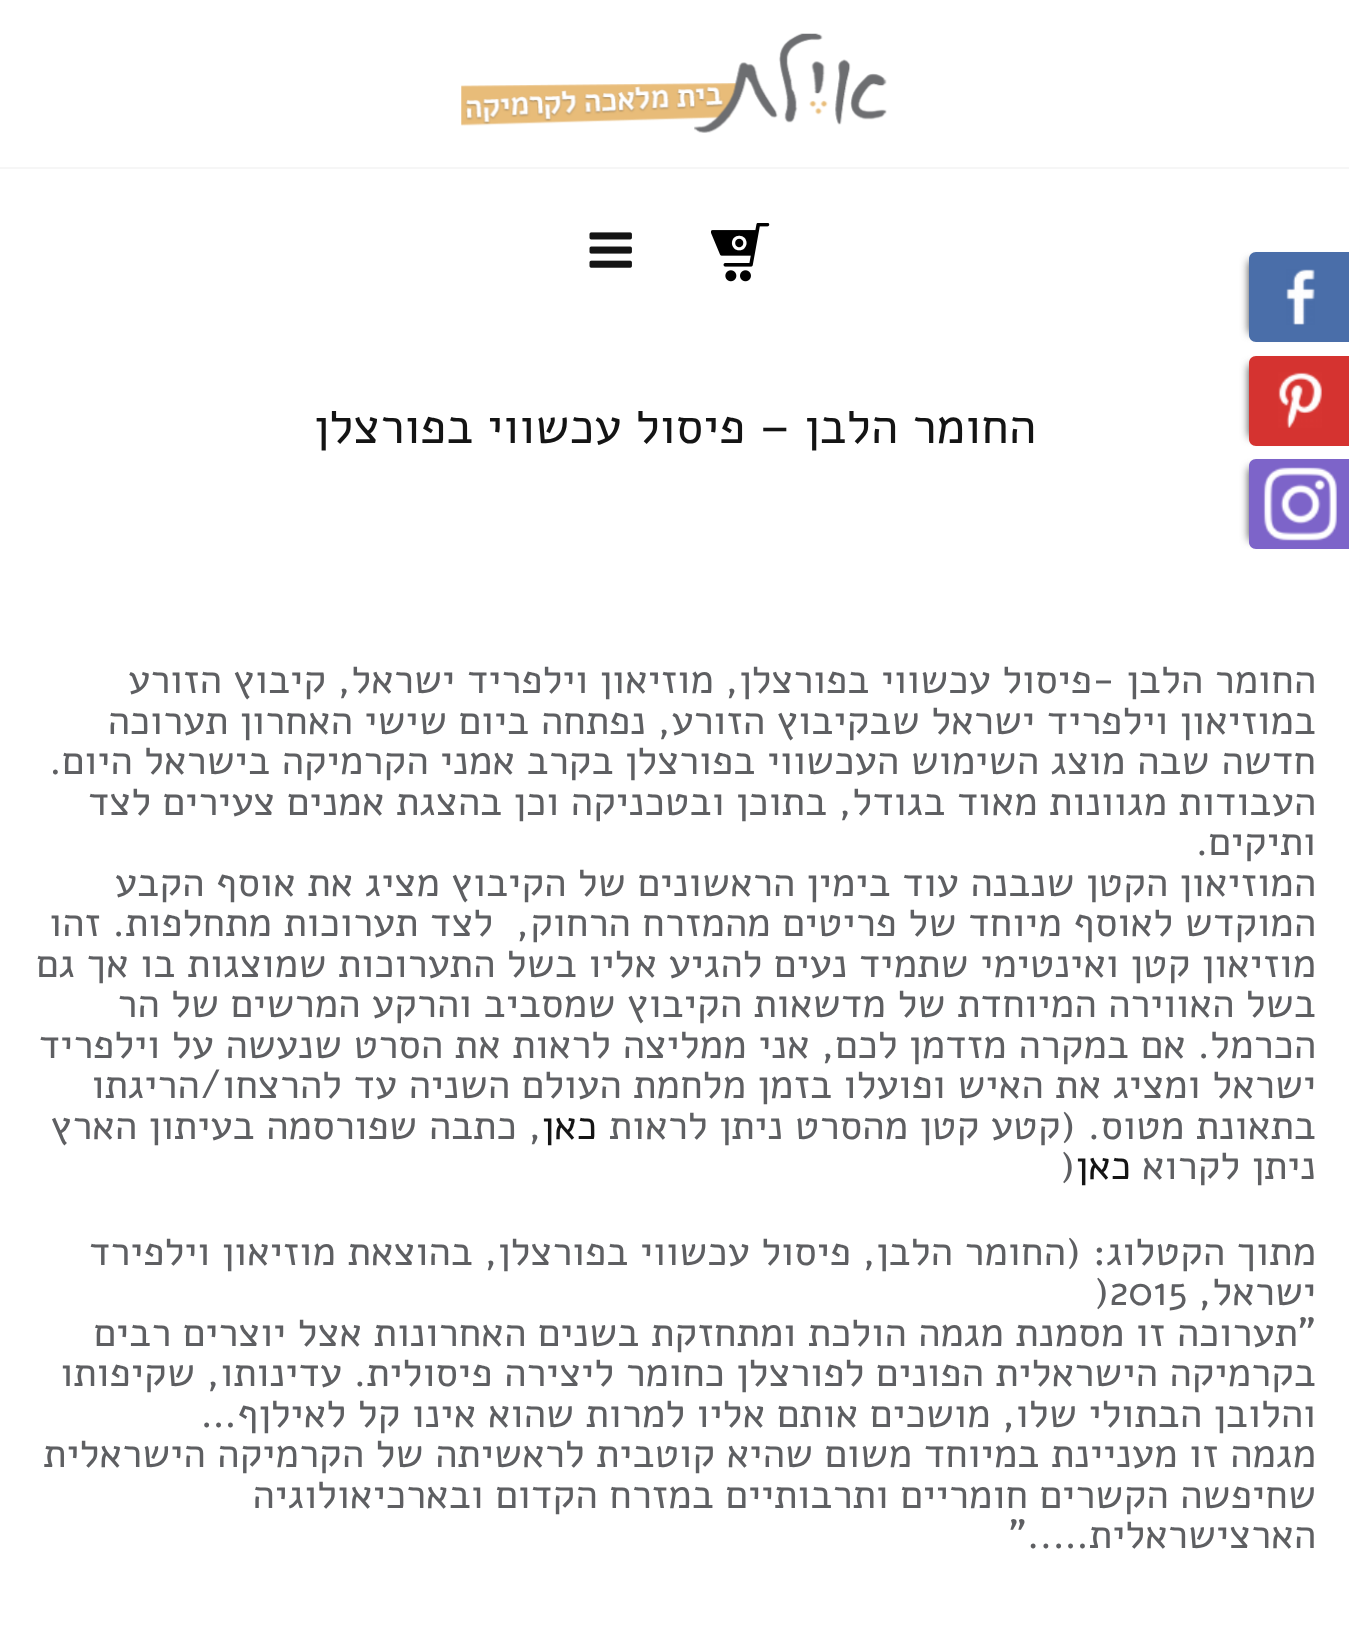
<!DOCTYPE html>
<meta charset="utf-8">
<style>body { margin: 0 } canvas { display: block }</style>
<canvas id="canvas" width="1349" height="1626"></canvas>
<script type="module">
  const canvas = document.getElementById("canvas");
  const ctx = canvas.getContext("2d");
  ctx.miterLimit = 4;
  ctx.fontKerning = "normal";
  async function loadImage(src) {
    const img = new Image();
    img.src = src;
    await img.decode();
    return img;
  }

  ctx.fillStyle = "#ffffff";
  ctx.fillRect(0, 0, 1349, 1626);
  ctx.fillStyle = "#f6f6f6";
  ctx.fillRect(0, 167, 1349, 2);
  ctx.drawImage(await loadImage("img1.png"), 461, 33, 426, 100);
  ctx.drawImage(await loadImage("img2.png"), 711, 223, 59, 59);
  ctx.font = "bold 27px Alef";
  ctx.fillStyle = "#ffffff";
  ctx.fillText("0", 731, 250);
  ctx.drawImage(await loadImage("img3.png"), 589, 232, 43, 36);
  ctx.direction = "rtl";
  ctx.font = "49.5px Alef";
  ctx.fillStyle = "#141414";
  ctx.fillText("החומר הלבן – פיסול עכשווי בפורצלן", 1036, 443);
  ctx.font = "40.5px Alef";
  ctx.fillStyle = "#5e5f62";
  ctx.fillText("החומר הלבן -פיסול עכשווי בפורצלן, מוזיאון וילפריד ישראל, קיבוץ הזורע", 1316, 693);
  ctx.fillText("במוזיאון וילפריד ישראל שבקיבוץ הזורע, נפתחה ביום שישי האחרון תערוכה", 1316, 734);
  ctx.fillText("חדשה שבה מוצג השימוש העכשווי בפורצלן בקרב אמני הקרמיקה בישראל היום.", 1316, 774);
  ctx.fillText("העבודות מגוונות מאוד בגודל, בתוכן ובטכניקה וכן בהצגת אמנים צעירים לצד", 1316, 815);
  ctx.fillText("ותיקים.", 1316, 855);
  ctx.fillText("המוזיאון הקטן שנבנה עוד בימין הראשונים של הקיבוץ מציג את אוסף הקבע", 1316, 896);
  ctx.fillText("המוקדש לאוסף מיוחד של פריטים מהמזרח הרחוק,  לצד תערוכות מתחלפות. זהו", 1316, 936);
  ctx.fillText("מוזיאון קטן ואינטימי שתמיד נעים להגיע אליו בשל התערוכות שמוצגות בו אך גם", 1316, 977);
  ctx.fillText("בשל האווירה המיוחדת של מדשאות הקיבוץ שמסביב והרקע המרשים של הר", 1316, 1017);
  ctx.fillText("הכרמל. אם במקרה מזדמן לכם, אני ממליצה לראות את הסרט שנעשה על וילפריד", 1316, 1058);
  ctx.fillText("ישראל ומציג את האיש ופועלו בזמן מלחמת העולם השניה עד להרצחו/הריגתו", 1316, 1098);
  ctx.fillText("בתאונת מטוס. (קטע קטן מהסרט ניתן לראות", 1316, 1139);
  ctx.fillStyle = "#141414";
  ctx.fillText("כאן", 597, 1139);
  ctx.fillStyle = "#5e5f62";
  ctx.fillText(", כתבה שפורסמה בעיתון הארץ", 542, 1139);
  ctx.fillText("ניתן לקרוא", 1316, 1179);
  ctx.fillStyle = "#141414";
  ctx.fillText("כאן", 1131, 1179);
  ctx.direction = "ltr";
  ctx.fillStyle = "#5e5f62";
  ctx.fillText(")", 1060, 1179);
  ctx.direction = "rtl";
  ctx.fillText("מתוך הקטלוג: (החומר הלבן, פיסול עכשווי בפורצלן, בהוצאת מוזיאון וילפירד", 1316, 1265);
  ctx.fillText("ישראל,", 1316, 1305);
  ctx.direction = "ltr";
  ctx.fillText(")2015", 1094, 1305);
  ctx.direction = "rtl";
  ctx.fillText("\"תערוכה זו מסמנת מגמה הולכת ומתחזקת בשנים האחרונות אצל יוצרים רבים", 1316, 1346);
  ctx.fillText("בקרמיקה הישראלית הפונים לפורצלן כחומר ליצירה פיסולית. עדינותו, שקיפותו", 1316, 1386);
  ctx.fillText("והלובן הבתולי שלו, מושכים אותם אליו למרות שהוא אינו קל לאילןף…", 1316, 1427);
  ctx.fillText("מגמה זו מעניינת במיוחד משום שהיא קוטבית לראשיתה של הקרמיקה הישראלית", 1316, 1467);
  ctx.fillText("שחיפשה הקשרים חומריים ותרבותיים במזרח הקדום ובארכיאולוגיה", 1316, 1508);
  ctx.fillText("הארצישראלית…..\"", 1316, 1548);
  ctx.fillStyle = "#444444";
  ctx.filter = "blur(4.5px)";
  ctx.beginPath();
  ctx.rect(1249, 261, 83, 72);
  ctx.fill();
  ctx.filter = "none";
  ctx.fillStyle = "#4a6ea9";
  ctx.beginPath();
  ctx.moveTo(1256, 252);
  ctx.lineTo(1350, 252);
  ctx.lineTo(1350, 342);
  ctx.lineTo(1256, 342);
  ctx.bezierCurveTo(1252, 342, 1249, 339, 1249, 335);
  ctx.lineTo(1249, 259);
  ctx.bezierCurveTo(1249, 255, 1252, 252, 1256, 252);
  ctx.closePath();
  ctx.fill();
  ctx.drawImage(await loadImage("img4.png"), 1286, 269, 29, 56);
  ctx.fillStyle = "#444444";
  ctx.filter = "blur(4.5px)";
  ctx.beginPath();
  ctx.rect(1249, 365, 83, 72);
  ctx.fill();
  ctx.filter = "none";
  ctx.fillStyle = "#d53330";
  ctx.beginPath();
  ctx.moveTo(1256, 356);
  ctx.lineTo(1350, 356);
  ctx.lineTo(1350, 446);
  ctx.lineTo(1256, 446);
  ctx.bezierCurveTo(1252, 446, 1249, 443, 1249, 439);
  ctx.lineTo(1249, 363);
  ctx.bezierCurveTo(1249, 359, 1252, 356, 1256, 356);
  ctx.closePath();
  ctx.fill();
  ctx.drawImage(await loadImage("img5.png"), 1278, 372, 44, 56);
  ctx.fillStyle = "#444444";
  ctx.filter = "blur(4.5px)";
  ctx.beginPath();
  ctx.rect(1249, 468, 83, 72);
  ctx.fill();
  ctx.filter = "none";
  ctx.fillStyle = "#7d64c9";
  ctx.beginPath();
  ctx.moveTo(1256, 459);
  ctx.lineTo(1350, 459);
  ctx.lineTo(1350, 549);
  ctx.lineTo(1256, 549);
  ctx.bezierCurveTo(1252, 549, 1249, 546, 1249, 542);
  ctx.lineTo(1249, 466);
  ctx.bezierCurveTo(1249, 462, 1252, 459, 1256, 459);
  ctx.closePath();
  ctx.fill();
  ctx.drawImage(await loadImage("img6.png"), 1263, 467, 74, 74);
</script>
